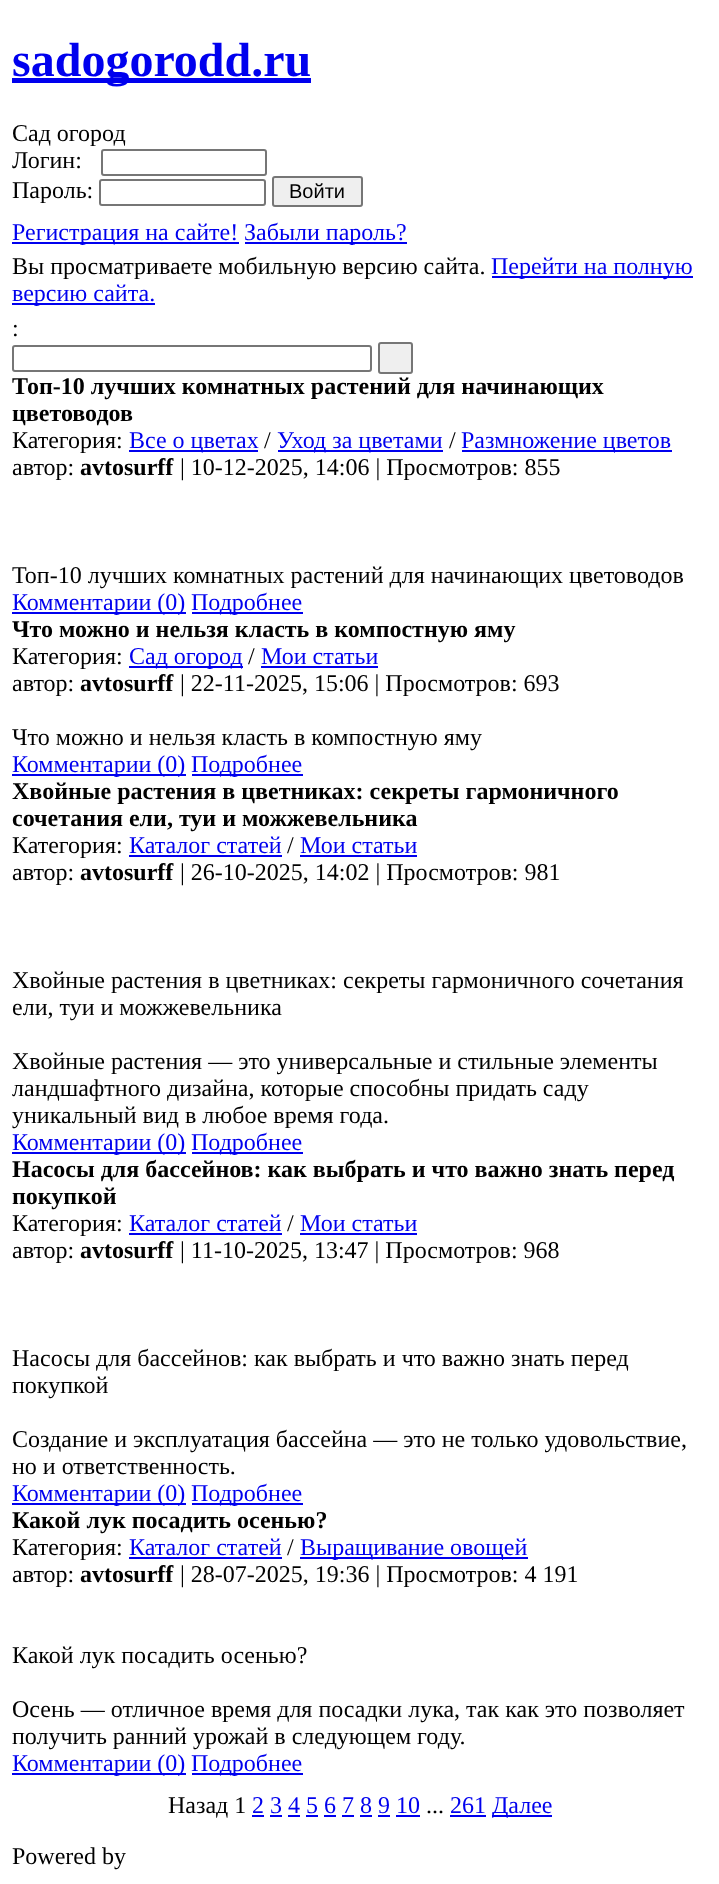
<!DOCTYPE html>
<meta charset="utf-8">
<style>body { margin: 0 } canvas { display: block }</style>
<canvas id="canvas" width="719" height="1884"></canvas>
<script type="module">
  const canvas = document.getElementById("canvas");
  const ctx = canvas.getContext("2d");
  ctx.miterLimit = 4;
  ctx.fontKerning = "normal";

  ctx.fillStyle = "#ffffff";
  ctx.fillRect(0, 0, 719, 1884);
  ctx.fillStyle = "#0000ee";
  ctx.fillRect(12, 78, 299, 5);
  ctx.font = "bold 48px Liberation Serif";
  ctx.fillText("sadogorodd.ru", 12, 76);
  ctx.font = "24px Liberation Serif";
  ctx.fillStyle = "#000000";
  ctx.fillText("Сад огород", 12, 141);
  ctx.fillText("Логин:", 12, 168);
  ctx.beginPath();
  ctx.roundRect(102, 150, 164, 25, 2);
  ctx.strokeStyle = "#767676";
  ctx.lineWidth = 2;
  ctx.stroke();
  ctx.fillText("Пароль:", 12, 198);
  ctx.beginPath();
  ctx.roundRect(100, 180, 165, 25, 2);
  ctx.stroke();
  ctx.fillStyle = "#efefef";
  ctx.beginPath();
  ctx.roundRect(273, 177, 89, 29, 2);
  ctx.fill();
  ctx.stroke();
  ctx.font = "20px Liberation Sans";
  ctx.fillStyle = "#000000";
  ctx.fillText("Войти", 289, 198);
  ctx.fillStyle = "#0000ee";
  ctx.fillRect(12, 242, 227, 2);
  ctx.font = "24px Liberation Serif";
  ctx.fillText("Регистрация на сайте!", 12, 240);
  ctx.fillRect(245, 242, 162, 2);
  ctx.fillText("Забыли пароль?", 244, 240);
  ctx.fillStyle = "#000000";
  ctx.fillText("Вы просматриваете мобильную версию сайта.", 12, 274);
  ctx.fillStyle = "#0000ee";
  ctx.fillRect(492, 276, 201, 2);
  ctx.fillText("Перейти на полную", 491, 274);
  ctx.fillRect(12, 303, 143, 2);
  ctx.fillText("версию сайта.", 12, 301);
  ctx.fillStyle = "#000000";
  ctx.fillText(":", 12, 336);
  ctx.beginPath();
  ctx.roundRect(13, 346, 358, 25, 2);
  ctx.stroke();
  ctx.fillStyle = "#efefef";
  ctx.beginPath();
  ctx.roundRect(379, 343, 33, 30, 2);
  ctx.fill();
  ctx.stroke();
  ctx.font = "bold 24px Liberation Serif";
  ctx.fillStyle = "#000000";
  ctx.fillText("Топ-10 лучших комнатных растений для начинающих", 12, 394);
  ctx.fillText("цветоводов", 12, 421);
  ctx.font = "24px Liberation Serif";
  ctx.fillText("Категория:", 12, 448);
  ctx.fillStyle = "#0000ee";
  ctx.fillRect(129, 450, 129, 2);
  ctx.fillText("Все о цветах", 129, 448);
  ctx.fillStyle = "#000000";
  ctx.fillText("/", 264, 448);
  ctx.fillStyle = "#0000ee";
  ctx.fillRect(278, 450, 165, 2);
  ctx.fillText("Уход за цветами", 277, 448);
  ctx.fillStyle = "#000000";
  ctx.fillText("/", 449, 448);
  ctx.fillStyle = "#0000ee";
  ctx.fillRect(462, 450, 210, 2);
  ctx.fillText("Размножение цветов", 461, 448);
  ctx.fillStyle = "#000000";
  ctx.fillText("автор:", 12, 475);
  ctx.font = "bold 24px Liberation Serif";
  ctx.fillText("avtosurff", 80, 475);
  ctx.font = "24px Liberation Serif";
  ctx.fillText("| 10-12-2025, 14:06 | Просмотров: 855", 180, 475);
  ctx.fillText("Топ-10 лучших комнатных растений для начинающих цветоводов", 12, 583);
  ctx.fillStyle = "#0000ee";
  ctx.fillRect(12, 612, 174, 2);
  ctx.fillText("Комментарии (0)", 12, 610);
  ctx.fillRect(192, 612, 111, 2);
  ctx.fillText("Подробнее", 191, 610);
  ctx.font = "bold 24px Liberation Serif";
  ctx.fillStyle = "#000000";
  ctx.fillText("Что можно и нельзя класть в компостную яму", 12, 637);
  ctx.font = "24px Liberation Serif";
  ctx.fillText("Категория:", 12, 664);
  ctx.fillStyle = "#0000ee";
  ctx.fillRect(129, 666, 114, 2);
  ctx.fillText("Сад огород", 129, 664);
  ctx.fillStyle = "#000000";
  ctx.fillText("/", 248, 664);
  ctx.fillStyle = "#0000ee";
  ctx.fillText("Мои статьи", 261, 664);
  ctx.fillRect(261, 666, 117, 2);
  ctx.fillStyle = "#000000";
  ctx.fillText("автор:", 12, 691);
  ctx.font = "bold 24px Liberation Serif";
  ctx.fillText("avtosurff", 80, 691);
  ctx.font = "24px Liberation Serif";
  ctx.fillText("| 22-11-2025, 15:06 | Просмотров: 693", 180, 691);
  ctx.fillText("Что можно и нельзя класть в компостную яму", 12, 745);
  ctx.fillStyle = "#0000ee";
  ctx.fillRect(12, 774, 174, 2);
  ctx.fillText("Комментарии (0)", 12, 772);
  ctx.fillRect(192, 774, 111, 2);
  ctx.fillText("Подробнее", 191, 772);
  ctx.font = "bold 24px Liberation Serif";
  ctx.fillStyle = "#000000";
  ctx.fillText("Хвойные растения в цветниках: секреты гармоничного", 12, 799);
  ctx.fillText("сочетания ели, туи и можжевельника", 12, 826);
  ctx.font = "24px Liberation Serif";
  ctx.fillText("Категория:", 12, 853);
  ctx.fillStyle = "#0000ee";
  ctx.fillText("Каталог статей", 129, 853);
  ctx.fillRect(129, 855, 153, 2);
  ctx.fillStyle = "#000000";
  ctx.fillText("/", 287, 853);
  ctx.fillStyle = "#0000ee";
  ctx.fillText("Мои статьи", 300, 853);
  ctx.fillRect(300, 855, 117, 2);
  ctx.fillStyle = "#000000";
  ctx.fillText("автор:", 12, 880);
  ctx.font = "bold 24px Liberation Serif";
  ctx.fillText("avtosurff", 80, 880);
  ctx.font = "24px Liberation Serif";
  ctx.fillText("| 26-10-2025, 14:02 | Просмотров: 981", 180, 880);
  ctx.fillText("Хвойные растения в цветниках: секреты гармоничного сочетания", 12, 988);
  ctx.fillText("ели, туи и можжевельника", 12, 1015);
  ctx.fillText("Хвойные растения — это универсальные и стильные элементы", 12, 1069);
  ctx.fillText("ландшафтного дизайна, которые способны придать саду", 12, 1096);
  ctx.fillText("уникальный вид в любое время года.", 12, 1123);
  ctx.fillStyle = "#0000ee";
  ctx.fillRect(12, 1152, 174, 2);
  ctx.fillText("Комментарии (0)", 12, 1150);
  ctx.fillRect(192, 1152, 111, 2);
  ctx.fillText("Подробнее", 191, 1150);
  ctx.font = "bold 24px Liberation Serif";
  ctx.fillStyle = "#000000";
  ctx.fillText("Насосы для бассейнов: как выбрать и что важно знать перед", 12, 1177);
  ctx.fillText("покупкой", 12, 1204);
  ctx.font = "24px Liberation Serif";
  ctx.fillText("Категория:", 12, 1231);
  ctx.fillStyle = "#0000ee";
  ctx.fillText("Каталог статей", 129, 1231);
  ctx.fillRect(129, 1233, 153, 2);
  ctx.fillStyle = "#000000";
  ctx.fillText("/", 287, 1231);
  ctx.fillStyle = "#0000ee";
  ctx.fillText("Мои статьи", 300, 1231);
  ctx.fillRect(300, 1233, 117, 2);
  ctx.fillStyle = "#000000";
  ctx.fillText("автор:", 12, 1258);
  ctx.font = "bold 24px Liberation Serif";
  ctx.fillText("avtosurff", 80, 1258);
  ctx.font = "24px Liberation Serif";
  ctx.fillText("| 11-10-2025, 13:47 | Просмотров: 968", 180, 1258);
  ctx.fillText("Насосы для бассейнов: как выбрать и что важно знать перед", 12, 1366);
  ctx.fillText("покупкой", 12, 1393);
  ctx.fillText("Создание и эксплуатация бассейна — это не только удовольствие,", 12, 1447);
  ctx.fillText("но и ответственность.", 12, 1474);
  ctx.fillStyle = "#0000ee";
  ctx.fillRect(12, 1503, 174, 2);
  ctx.fillText("Комментарии (0)", 12, 1501);
  ctx.fillRect(192, 1503, 111, 2);
  ctx.fillText("Подробнее", 191, 1501);
  ctx.font = "bold 24px Liberation Serif";
  ctx.fillStyle = "#000000";
  ctx.fillText("Какой лук посадить осенью?", 12, 1528);
  ctx.font = "24px Liberation Serif";
  ctx.fillText("Категория:", 12, 1555);
  ctx.fillStyle = "#0000ee";
  ctx.fillText("Каталог статей", 129, 1555);
  ctx.fillRect(129, 1557, 153, 2);
  ctx.fillStyle = "#000000";
  ctx.fillText("/", 287, 1555);
  ctx.fillStyle = "#0000ee";
  ctx.fillRect(300, 1557, 228, 2);
  ctx.fillText("Выращивание овощей", 300, 1555);
  ctx.fillStyle = "#000000";
  ctx.fillText("автор:", 12, 1582);
  ctx.font = "bold 24px Liberation Serif";
  ctx.fillText("avtosurff", 80, 1582);
  ctx.font = "24px Liberation Serif";
  ctx.fillText("| 28-07-2025, 19:36 | Просмотров: 4 191", 180, 1582);
  ctx.fillText("Какой лук посадить осенью?", 12, 1663);
  ctx.fillText("Осень — отличное время для посадки лука, так как это позволяет", 12, 1717);
  ctx.fillText("получить ранний урожай в следующем году.", 12, 1744);
  ctx.fillStyle = "#0000ee";
  ctx.fillRect(12, 1773, 174, 2);
  ctx.fillText("Комментарии (0)", 12, 1771);
  ctx.fillRect(192, 1773, 111, 2);
  ctx.fillText("Подробнее", 191, 1771);
  ctx.fillStyle = "#000000";
  ctx.fillText("Назад 1", 168, 1813);
  ctx.fillStyle = "#0000ee";
  ctx.fillText("2 3 4 5 6 7 8 9 10", 252, 1813);
  ctx.fillRect(252, 1815, 12, 2);
  ctx.fillStyle = "#000000";
  ctx.fillText("...", 426, 1813);
  ctx.fillStyle = "#0000ee";
  ctx.fillText("261", 450, 1813);
  ctx.fillRect(450, 1815, 36, 2);
  ctx.fillRect(492, 1815, 60, 2);
  ctx.fillText("Далее", 492, 1813);
  ctx.fillRect(270, 1815, 12, 2);
  ctx.fillRect(288, 1815, 12, 2);
  ctx.fillRect(306, 1815, 12, 2);
  ctx.fillRect(324, 1815, 12, 2);
  ctx.fillRect(342, 1815, 12, 2);
  ctx.fillRect(360, 1815, 12, 2);
  ctx.fillRect(378, 1815, 12, 2);
  ctx.fillRect(396, 1815, 24, 2);
  ctx.fillStyle = "#000000";
  ctx.fillText("Powered by", 12, 1864);
</script>
